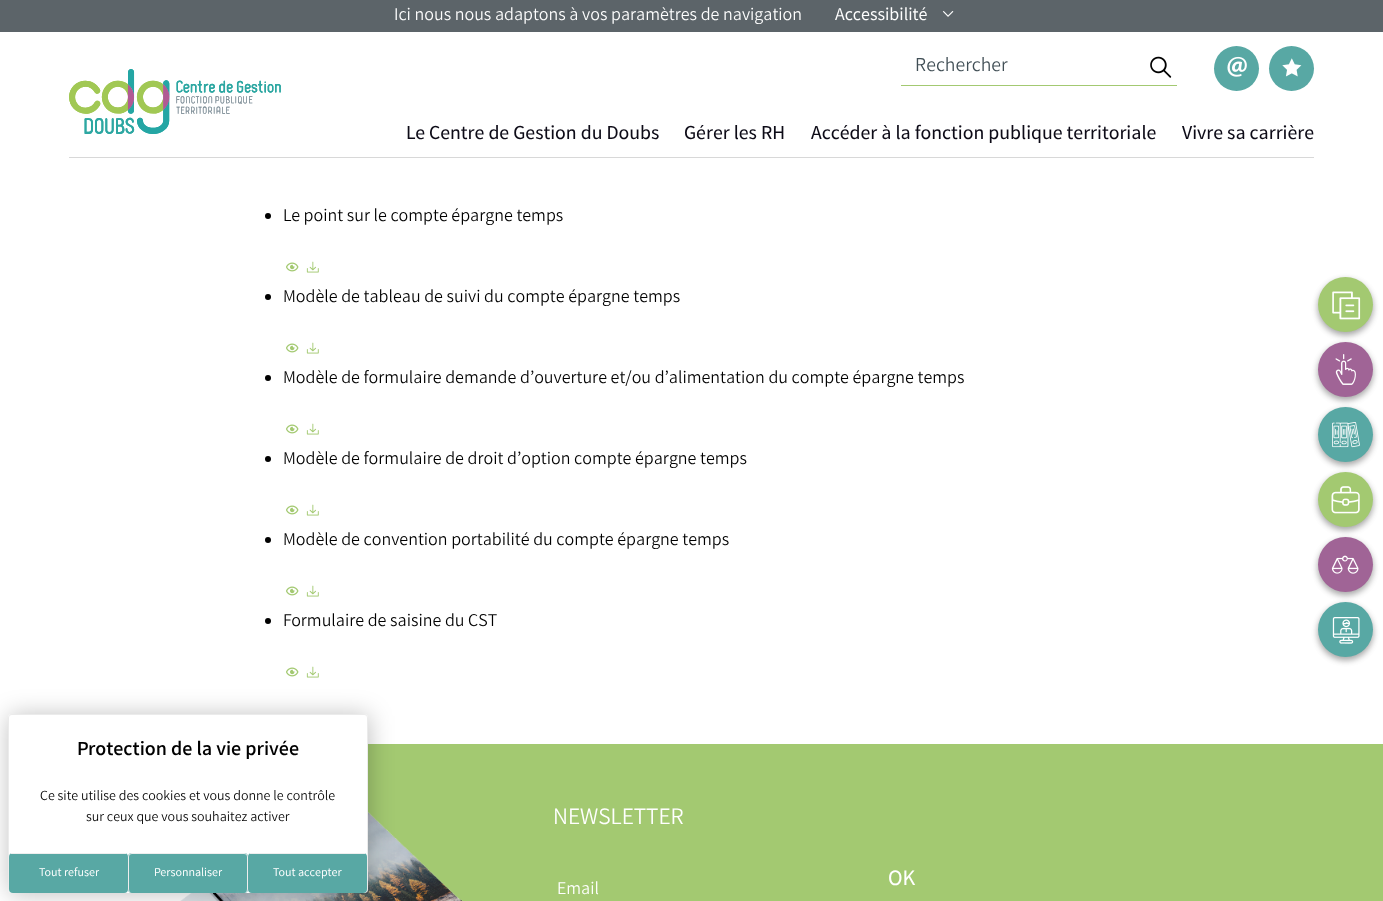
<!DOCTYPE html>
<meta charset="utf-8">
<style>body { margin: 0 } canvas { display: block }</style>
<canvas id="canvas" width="1383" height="901"></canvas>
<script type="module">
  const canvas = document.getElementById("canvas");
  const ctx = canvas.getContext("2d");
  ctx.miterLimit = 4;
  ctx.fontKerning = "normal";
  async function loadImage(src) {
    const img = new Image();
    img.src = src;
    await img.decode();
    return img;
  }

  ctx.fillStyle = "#ffffff";
  ctx.fillRect(0, 0, 1383, 901);
  ctx.fillStyle = "#5c6469";
  ctx.fillRect(0, 0, 1383, 32);
  ctx.font = "300 18px Varta";
  ctx.fillStyle = "#ffffff";
  ctx.fillText("Ici nous nous adaptons à vos paramètres de navigation", 394, 20);
  ctx.font = "18px Varta";
  ctx.fillText("Accessibilité", 835, 20);
  ctx.drawImage(await loadImage("img1.png"), 942, 11, 12, 6);
  ctx.fillStyle = "#d8d8d8";
  ctx.fillRect(69, 157, 1245, 1);
  ctx.drawImage(await loadImage("img2.png"), 69, 69, 212, 65);
  ctx.fillStyle = "#a3c971";
  ctx.fillRect(901, 85, 276, 1);
  ctx.font = "300 19.75px Varta";
  ctx.fillStyle = "#404e55";
  ctx.fillText("Rechercher", 915, 71);
  ctx.drawImage(await loadImage("img3.png"), 1150, 56, 22, 22);
  ctx.fillStyle = "#58a8a4";
  ctx.beginPath();
  ctx.arc(1236.5, 68.5, 22.5, 0, Math.PI * 2);
  ctx.fill();
  ctx.drawImage(await loadImage("img4.png"), 1227, 56, 20, 21);
  ctx.beginPath();
  ctx.arc(1291.5, 68.5, 22.5, 0, Math.PI * 2);
  ctx.fill();
  ctx.drawImage(await loadImage("img5.png"), 1282, 58, 20, 19);
  ctx.font = "500 19.75px Varta";
  ctx.fillStyle = "#0d0b17";
  ctx.fillText("Le Centre de Gestion du Doubs", 406, 139);
  ctx.fillText("Gérer les RH", 684, 139);
  ctx.fillText("Accéder à la fonction publique territoriale", 811, 139);
  ctx.fillText("Vivre sa carrière", 1182, 139);
  ctx.fillStyle = "#000000";
  ctx.beginPath();
  ctx.arc(268, 216, 3, 0, Math.PI * 2);
  ctx.fill();
  ctx.font = "300 18px Varta";
  ctx.fillText("Le point sur le compte épargne temps", 283, 221);
  ctx.drawImage(await loadImage("img6.png"), 286, 262, 13, 10);
  ctx.drawImage(await loadImage("img7.png"), 306, 261, 13, 12);
  ctx.beginPath();
  ctx.arc(268, 297, 3, 0, Math.PI * 2);
  ctx.fill();
  ctx.fillText("Modèle de tableau de suivi du compte épargne temps", 283, 302);
  ctx.drawImage(await loadImage("img6.png"), 286, 343, 13, 10);
  ctx.drawImage(await loadImage("img7.png"), 306, 342, 13, 12);
  ctx.beginPath();
  ctx.arc(268, 378, 3, 0, Math.PI * 2);
  ctx.fill();
  ctx.fillText("Modèle de formulaire demande d’ouverture et/ou d’alimentation du compte épargne temps", 283, 383);
  ctx.drawImage(await loadImage("img6.png"), 286, 424, 13, 10);
  ctx.drawImage(await loadImage("img7.png"), 306, 423, 13, 12);
  ctx.beginPath();
  ctx.arc(268, 459, 3, 0, Math.PI * 2);
  ctx.fill();
  ctx.fillText("Modèle de formulaire de droit d’option compte épargne temps", 283, 464);
  ctx.drawImage(await loadImage("img6.png"), 286, 505, 13, 10);
  ctx.drawImage(await loadImage("img7.png"), 306, 504, 13, 12);
  ctx.beginPath();
  ctx.arc(268, 540, 3, 0, Math.PI * 2);
  ctx.fill();
  ctx.fillText("Modèle de convention portabilité du compte épargne temps", 283, 545);
  ctx.drawImage(await loadImage("img6.png"), 286, 586, 13, 10);
  ctx.drawImage(await loadImage("img7.png"), 306, 585, 13, 12);
  ctx.beginPath();
  ctx.arc(268, 621, 3, 0, Math.PI * 2);
  ctx.fill();
  ctx.fillText("Formulaire de saisine du CST", 283, 626);
  ctx.drawImage(await loadImage("img6.png"), 286, 667, 13, 10);
  ctx.drawImage(await loadImage("img7.png"), 306, 666, 13, 12);
  ctx.fillStyle = "#a3c971";
  ctx.fillRect(368, 744, 1015, 157);
  ctx.drawImage(await loadImage("img8.png"), 180, 812, 283, 89);
  ctx.font = "300 23.5px Varta";
  ctx.fillStyle = "#ffffff";
  ctx.fillText("NEWSLETTER", 553, 824);
  ctx.font = "500 22px Varta";
  ctx.fillText("OK", 888, 885);
  ctx.font = "300 18px Varta";
  ctx.fillText("Email", 557, 894);
  ctx.fillStyle = "rgba(0, 0, 0, 0.23)";
  ctx.filter = "blur(3px)";
  ctx.beginPath();
  ctx.roundRect(1318, 280, 55, 55, 27.5);
  ctx.fill();
  ctx.filter = "none";
  ctx.fillStyle = "rgba(0, 0, 0, 0.16)";
  ctx.filter = "blur(3px)";
  ctx.beginPath();
  ctx.roundRect(1318, 280, 55, 55, 27.5);
  ctx.fill();
  ctx.filter = "none";
  ctx.fillStyle = "#a3c971";
  ctx.beginPath();
  ctx.arc(1345.5, 304.5, 27.5, 0, Math.PI * 2);
  ctx.fill();
  ctx.drawImage(await loadImage("img9.png"), 1332, 291, 29, 29);
  ctx.fillStyle = "rgba(0, 0, 0, 0.23)";
  ctx.filter = "blur(3px)";
  ctx.beginPath();
  ctx.roundRect(1318, 345, 55, 55, 27.5);
  ctx.fill();
  ctx.filter = "none";
  ctx.fillStyle = "rgba(0, 0, 0, 0.16)";
  ctx.filter = "blur(3px)";
  ctx.beginPath();
  ctx.roundRect(1318, 345, 55, 55, 27.5);
  ctx.fill();
  ctx.filter = "none";
  ctx.fillStyle = "#a06496";
  ctx.beginPath();
  ctx.arc(1345.5, 369.5, 27.5, 0, Math.PI * 2);
  ctx.fill();
  ctx.drawImage(await loadImage("img10.png"), 1335, 354, 21, 31);
  ctx.fillStyle = "rgba(0, 0, 0, 0.23)";
  ctx.filter = "blur(3px)";
  ctx.beginPath();
  ctx.roundRect(1318, 410, 55, 55, 27.5);
  ctx.fill();
  ctx.filter = "none";
  ctx.fillStyle = "rgba(0, 0, 0, 0.16)";
  ctx.filter = "blur(3px)";
  ctx.beginPath();
  ctx.roundRect(1318, 410, 55, 55, 27.5);
  ctx.fill();
  ctx.filter = "none";
  ctx.fillStyle = "#58a8a4";
  ctx.beginPath();
  ctx.arc(1345.5, 434.5, 27.5, 0, Math.PI * 2);
  ctx.fill();
  ctx.drawImage(await loadImage("img11.png"), 1332, 422, 28, 26);
  ctx.fillStyle = "rgba(0, 0, 0, 0.23)";
  ctx.filter = "blur(3px)";
  ctx.beginPath();
  ctx.roundRect(1318, 475, 55, 55, 27.5);
  ctx.fill();
  ctx.filter = "none";
  ctx.fillStyle = "rgba(0, 0, 0, 0.16)";
  ctx.filter = "blur(3px)";
  ctx.beginPath();
  ctx.roundRect(1318, 475, 55, 55, 27.5);
  ctx.fill();
  ctx.filter = "none";
  ctx.fillStyle = "#a3c971";
  ctx.beginPath();
  ctx.arc(1345.5, 499.5, 27.5, 0, Math.PI * 2);
  ctx.fill();
  ctx.drawImage(await loadImage("img12.png"), 1331, 486, 29, 28);
  ctx.fillStyle = "rgba(0, 0, 0, 0.23)";
  ctx.filter = "blur(3px)";
  ctx.beginPath();
  ctx.roundRect(1318, 540, 55, 55, 27.5);
  ctx.fill();
  ctx.filter = "none";
  ctx.fillStyle = "rgba(0, 0, 0, 0.16)";
  ctx.filter = "blur(3px)";
  ctx.beginPath();
  ctx.roundRect(1318, 540, 55, 55, 27.5);
  ctx.fill();
  ctx.filter = "none";
  ctx.fillStyle = "#a06496";
  ctx.beginPath();
  ctx.arc(1345.5, 564.5, 27.5, 0, Math.PI * 2);
  ctx.fill();
  ctx.drawImage(await loadImage("img13.png"), 1331, 555, 28, 19);
  ctx.fillStyle = "rgba(0, 0, 0, 0.23)";
  ctx.filter = "blur(3px)";
  ctx.beginPath();
  ctx.roundRect(1318, 605, 55, 55, 27.5);
  ctx.fill();
  ctx.filter = "none";
  ctx.fillStyle = "rgba(0, 0, 0, 0.16)";
  ctx.filter = "blur(3px)";
  ctx.beginPath();
  ctx.roundRect(1318, 605, 55, 55, 27.5);
  ctx.fill();
  ctx.filter = "none";
  ctx.fillStyle = "#58a8a4";
  ctx.beginPath();
  ctx.arc(1345.5, 629.5, 27.5, 0, Math.PI * 2);
  ctx.fill();
  ctx.drawImage(await loadImage("img14.png"), 1332, 617, 28, 27);
  ctx.fillStyle = "rgba(0, 0, 0, 0.25)";
  ctx.filter = "blur(12px)";
  ctx.beginPath();
  ctx.roundRect(9, 715, 360, 179, 4);
  ctx.fill();
  ctx.filter = "none";
  ctx.fillStyle = "#ffffff";
  ctx.beginPath();
  ctx.roundRect(8, 714, 360, 179, 4);
  ctx.fill();
  ctx.fillStyle = "rgba(0, 0, 0, 0.08)";
  ctx.beginPath();
  ctx.moveTo(12, 714);
  ctx.lineTo(364, 714);
  ctx.bezierCurveTo(366, 714, 368, 716, 368, 718);
  ctx.lineTo(368, 889);
  ctx.bezierCurveTo(368, 891, 366, 893, 364, 893);
  ctx.lineTo(12, 893);
  ctx.bezierCurveTo(10, 893, 8, 891, 8, 889);
  ctx.lineTo(8, 718);
  ctx.bezierCurveTo(8, 716, 10, 714, 12, 714);
  ctx.closePath();
  ctx.moveTo(12, 715);
  ctx.lineTo(364, 715);
  ctx.bezierCurveTo(366, 715, 367, 716, 367, 718);
  ctx.lineTo(367, 889);
  ctx.bezierCurveTo(367, 891, 366, 893, 364, 893);
  ctx.lineTo(12, 893);
  ctx.bezierCurveTo(10, 893, 9, 891, 9, 889);
  ctx.lineTo(9, 718);
  ctx.bezierCurveTo(9, 716, 10, 715, 12, 715);
  ctx.closePath();
  ctx.fill("evenodd");
  ctx.font = "bold 20px Varta";
  ctx.fillStyle = "#000000";
  ctx.fillText("Protection de la vie privée", 77, 755);
  ctx.font = "300 14px Varta";
  ctx.fillText("Ce site utilise des cookies et vous donne le contrôle", 40, 800);
  ctx.fillText("sur ceux que vous souhaitez activer", 86, 821);
  ctx.fillStyle = "#58a8a4";
  ctx.beginPath();
  ctx.roundRect(9, 853, 119, 40, 4);
  ctx.fill();
  ctx.fillStyle = "#eeeeee";
  ctx.fillRect(11, 853, 115, 1);
  ctx.font = "12px Varta";
  ctx.fillStyle = "#ffffff";
  ctx.fillText("Tout refuser", 39, 876);
  ctx.fillStyle = "#58a8a4";
  ctx.beginPath();
  ctx.roundRect(128, 853, 120, 40, 4);
  ctx.fill();
  ctx.fillStyle = "#eeeeee";
  ctx.beginPath();
  ctx.moveTo(132, 853);
  ctx.lineTo(244, 853);
  ctx.bezierCurveTo(246, 853, 248, 855, 248, 857);
  ctx.lineTo(248, 889);
  ctx.bezierCurveTo(248, 891, 246, 893, 244, 893);
  ctx.lineTo(132, 893);
  ctx.bezierCurveTo(130, 893, 128, 891, 128, 889);
  ctx.lineTo(128, 857);
  ctx.bezierCurveTo(128, 855, 130, 853, 132, 853);
  ctx.closePath();
  ctx.moveTo(132, 854);
  ctx.lineTo(244, 854);
  ctx.bezierCurveTo(246, 854, 247, 855, 247, 857);
  ctx.lineTo(247, 889);
  ctx.bezierCurveTo(247, 891, 246, 893, 244, 893);
  ctx.lineTo(132, 893);
  ctx.bezierCurveTo(130, 893, 129, 891, 129, 889);
  ctx.lineTo(129, 857);
  ctx.bezierCurveTo(129, 855, 130, 854, 132, 854);
  ctx.closePath();
  ctx.fill("evenodd");
  ctx.fillStyle = "#ffffff";
  ctx.fillText("Personnaliser", 154, 876);
  ctx.fillStyle = "#58a8a4";
  ctx.beginPath();
  ctx.roundRect(248, 853, 119, 40, 4);
  ctx.fill();
  ctx.fillStyle = "#eeeeee";
  ctx.fillRect(250, 853, 115, 1);
  ctx.fillStyle = "#ffffff";
  ctx.fillText("Tout accepter", 273, 876);
</script>
